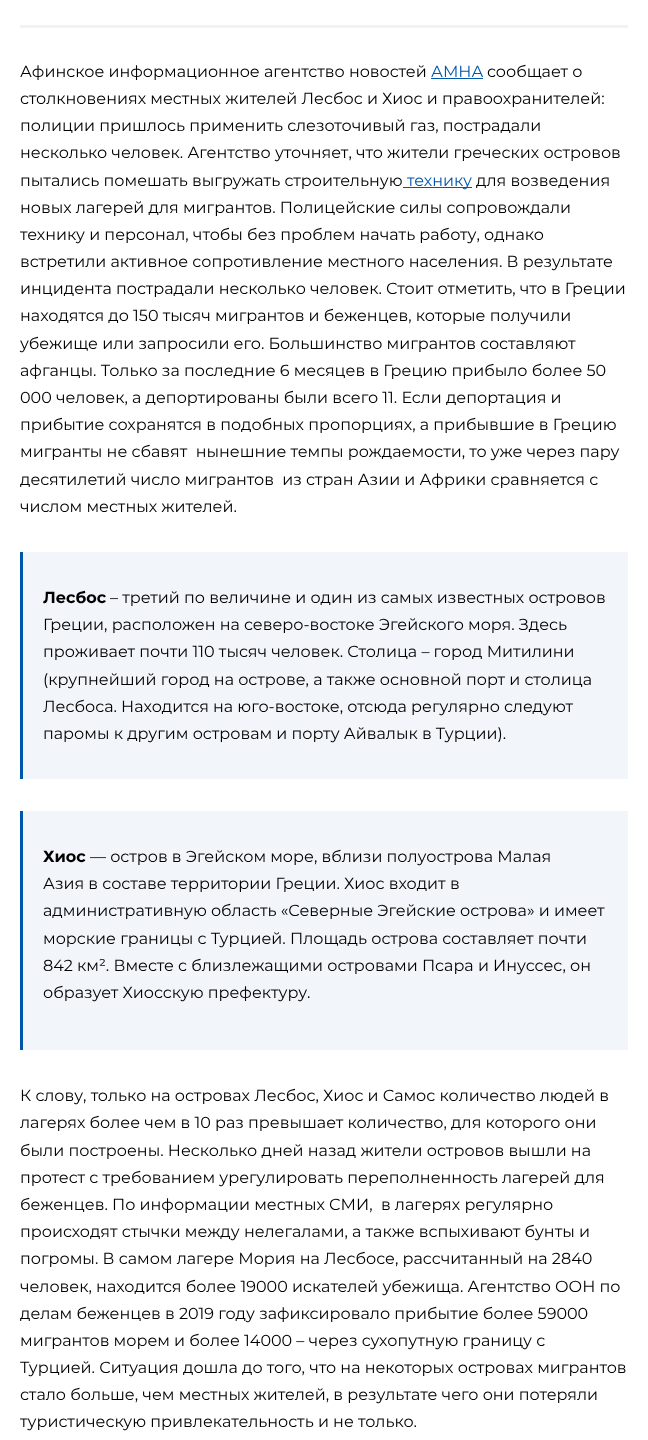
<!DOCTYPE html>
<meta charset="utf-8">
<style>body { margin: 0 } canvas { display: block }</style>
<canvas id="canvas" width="648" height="1440"></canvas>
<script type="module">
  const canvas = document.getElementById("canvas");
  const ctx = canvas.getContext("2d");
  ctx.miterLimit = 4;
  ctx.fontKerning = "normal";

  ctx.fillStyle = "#ffffff";
  ctx.fillRect(0, 0, 648, 1440);
  ctx.fillStyle = "#f2f2f2";
  ctx.fillRect(20, 25, 608, 3);
  ctx.font = "16px Montserrat";
  ctx.fillStyle = "#000000";
  ctx.fillText("Афинское информационное агентство новостей", 20, 77);
  ctx.fillStyle = "#0056a9";
  ctx.fillText("АМНА", 431, 77);
  ctx.fillRect(431, 78, 52, 1);
  ctx.fillStyle = "#000000";
  ctx.fillText("сообщает о", 487, 77);
  ctx.fillText("столкновениях местных жителей Лесбос и Хиос и правоохранителей:", 20, 104);
  ctx.fillText("полиции пришлось применить слезоточивый газ, пострадали", 20, 131);
  ctx.fillText("несколько человек. Агентство уточняет, что жители греческих островов", 20, 158);
  ctx.fillText("пытались помешать выгружать строительную", 20, 186);
  ctx.fillStyle = "#0056a9";
  ctx.fillRect(403, 187, 69, 1);
  ctx.fillText("технику", 407, 186);
  ctx.fillStyle = "#000000";
  ctx.fillText("для возведения", 476, 186);
  ctx.fillText("новых лагерей для мигрантов. Полицейские силы сопровождали", 20, 213);
  ctx.fillText("технику и персонал, чтобы без проблем начать работу, однако", 20, 240);
  ctx.fillText("встретили активное сопротивление местного населения. В результате", 20, 267);
  ctx.fillText("инцидента пострадали несколько человек. Стоит отметить, что в Греции", 20, 294);
  ctx.fillText("находятся до 150 тысяч мигрантов и беженцев, которые получили", 20, 321);
  ctx.fillText("убежище или запросили его. Большинство мигрантов составляют", 20, 349);
  ctx.fillText("афганцы. Только за последние 6 месяцев в Грецию прибыло более 50", 20, 376);
  ctx.fillText("000 человек, а депортированы были всего 11. Если депортация и", 20, 403);
  ctx.fillText("прибытие сохранятся в подобных пропорциях, а прибывшие в Грецию", 20, 430);
  ctx.fillText("мигранты не сбавят  нынешние темпы рождаемости, то уже через пару", 20, 457);
  ctx.fillText("десятилетий число мигрантов  из стран Азии и Африки сравняется с", 20, 485);
  ctx.fillText("числом местных жителей.", 20, 512);
  ctx.fillStyle = "#f2f5f9";
  ctx.fillRect(23, 552, 605, 227);
  ctx.fillStyle = "#0056a9";
  ctx.fillRect(20, 552, 3, 227);
  ctx.font = "bold 16px Montserrat";
  ctx.fillStyle = "#000000";
  ctx.fillText("Лесбос", 43, 603);
  ctx.font = "16px Montserrat";
  ctx.fillText("– третий по величине и один из самых известных островов", 110, 603);
  ctx.fillText("Греции, расположен на северо-востоке Эгейского моря. Здесь", 43, 630);
  ctx.fillText("проживает почти 110 тысяч человек. Столица – город Митилини", 43, 657);
  ctx.fillText("(крупнейший город на острове, а также основной порт и столица", 43, 685);
  ctx.fillText("Лесбоса. Находится на юго-востоке, отсюда регулярно следуют", 43, 712);
  ctx.fillText("паромы к другим островам и порту Айвалык в Турции).", 43, 739);
  ctx.fillStyle = "#f2f5f9";
  ctx.fillRect(23, 811, 605, 239);
  ctx.fillStyle = "#0056a9";
  ctx.fillRect(20, 811, 3, 239);
  ctx.font = "bold 16px Montserrat";
  ctx.fillStyle = "#000000";
  ctx.fillText("Хиос", 43, 862);
  ctx.font = "16px Montserrat";
  ctx.fillText("— остров в Эгейском море, вблизи полуострова Малая", 90, 862);
  ctx.fillText("Азия в составе территории Греции. Хиос входит в", 43, 889);
  ctx.fillText("административную область «Северные Эгейские острова» и имеет", 43, 916);
  ctx.fillText("морские границы с Турцией. Площадь острова составляет почти", 43, 944);
  ctx.fillText("842 км². Вместе с близлежащими островами Псара и Инуссес, он", 43, 971);
  ctx.fillText("образует Хиосскую префектуру.", 43, 998);
  ctx.fillText("К слову, только на островах Лесбос, Хиос и Самос количество людей в", 20, 1101);
  ctx.fillText("лагерях более чем в 10 раз превышает количество, для которого они", 20, 1128);
  ctx.fillText("были построены. Несколько дней назад жители островов вышли на", 20, 1156);
  ctx.fillText("протест с требованием урегулировать переполненность лагерей для", 20, 1183);
  ctx.fillText("беженцев. По информации местных СМИ,  в лагерях регулярно", 20, 1210);
  ctx.fillText("происходят стычки между нелегалами, а также вспыхивают бунты и", 20, 1237);
  ctx.fillText("погромы. В самом лагере Мория на Лесбосе, рассчитанный на 2840", 20, 1264);
  ctx.fillText("человек, находится более 19000 искателей убежища. Агентство ООН по", 20, 1292);
  ctx.fillText("делам беженцев в 2019 году зафиксировало прибытие более 59000", 20, 1319);
  ctx.fillText("мигрантов морем и более 14000 – через сухопутную границу с", 20, 1346);
  ctx.fillText("Турцией. Ситуация дошла до того, что на некоторых островах мигрантов", 20, 1373);
  ctx.fillText("стало больше, чем местных жителей, в результате чего они потеряли", 20, 1400);
  ctx.fillText("туристическую привлекательность и не только.", 20, 1427);
</script>
